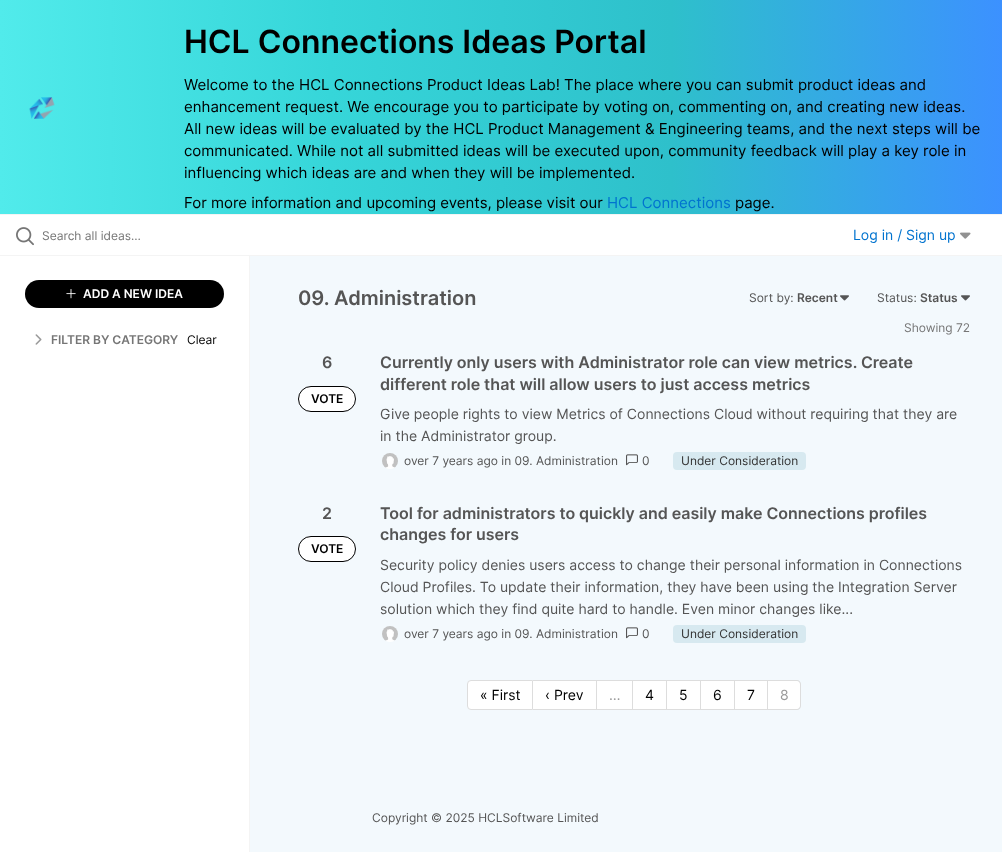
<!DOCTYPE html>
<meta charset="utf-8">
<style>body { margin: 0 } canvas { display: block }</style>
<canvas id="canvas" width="1002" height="852"></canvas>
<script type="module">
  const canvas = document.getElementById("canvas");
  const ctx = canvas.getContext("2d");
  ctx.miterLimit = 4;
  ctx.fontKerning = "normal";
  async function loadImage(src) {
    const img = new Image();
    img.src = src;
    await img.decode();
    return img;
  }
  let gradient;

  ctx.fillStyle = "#f3f9fd";
  ctx.fillRect(0, 0, 1002, 852);
  gradient = ctx.createLinearGradient(0, 107, 1002, 107);
  gradient.addColorStop(0, "#51ebeb");
  gradient.addColorStop(0.33, "#36d6d9");
  gradient.addColorStop(0.67, "#2ec0cb");
  gradient.addColorStop(1, "#3c91ff");
  ctx.fillStyle = gradient;
  ctx.fillRect(0, 0, 1002, 214);
  ctx.fillStyle = "#f4f4f4";
  ctx.fillRect(0, 214, 1002, 1);
  ctx.drawImage(await loadImage("img1.png"), 29, 97, 26, 22);
  ctx.font = "600 32px Inter";
  ctx.fillStyle = "#000000";
  ctx.fillText("HCL Connections Ideas Portal", 184, 53);
  ctx.font = "15px Inter";
  ctx.fillText("Welcome to the HCL Connections Product Ideas Lab! The place where you can submit product ideas and", 184, 90);
  ctx.fillText("enhancement request. We encourage you to participate by voting on, commenting on, and creating new ideas.", 184, 112);
  ctx.fillText("All new ideas will be evaluated by the HCL Product Management & Engineering teams, and the next steps will be", 184, 134);
  ctx.fillText("communicated. While not all submitted ideas will be executed upon, community feedback will play a key role in", 184, 156);
  ctx.fillText("influencing which ideas are and when they will be implemented.", 184, 178);
  ctx.fillText("For more information and upcoming events, please visit our", 184, 208);
  ctx.fillStyle = "#0073cf";
  ctx.fillText("HCL Connections", 607, 208);
  ctx.fillStyle = "#000000";
  ctx.fillText("page.", 735, 208);
  ctx.fillStyle = "#ffffff";
  ctx.fillRect(0, 215, 1002, 40);
  ctx.fillStyle = "#f4f4f4";
  ctx.fillRect(0, 255, 1002, 1);
  ctx.drawImage(await loadImage("img2.png"), 16, 227, 18, 19);
  ctx.font = "12px Inter";
  ctx.fillStyle = "#767676";
  ctx.fillText("Search all ideas…", 42, 240);
  ctx.font = "14px Inter";
  ctx.fillStyle = "#0073cf";
  ctx.fillText("Log in / Sign up", 853, 240);
  ctx.drawImage(await loadImage("img3.png"), 960, 232, 11, 7);
  ctx.fillStyle = "#ffffff";
  ctx.fillRect(0, 256, 249, 596);
  ctx.fillStyle = "#f4f4f4";
  ctx.fillRect(249, 256, 1, 596);
  ctx.fillStyle = "#000000";
  ctx.beginPath();
  ctx.roundRect(25, 280, 199, 28, 14);
  ctx.fill();
  ctx.drawImage(await loadImage("img4.png"), 66, 289, 10, 10);
  ctx.font = "600 12px Inter";
  ctx.fillStyle = "#ffffff";
  ctx.fillText("ADD A NEW IDEA", 83, 298);
  ctx.drawImage(await loadImage("img5.png"), 35, 334, 7, 11);
  ctx.fillStyle = "#767676";
  ctx.fillText("FILTER BY CATEGORY", 51, 344);
  ctx.font = "12px Inter";
  ctx.fillStyle = "#000000";
  ctx.fillText("Clear", 187, 344);
  ctx.font = "600 20px Inter";
  ctx.fillStyle = "#555555";
  ctx.fillText("09. Administration", 298, 305);
  ctx.font = "12px Inter";
  ctx.fillText("Sort by:", 749, 302);
  ctx.font = "600 12px Inter";
  ctx.fillText("Recent", 797, 302);
  ctx.drawImage(await loadImage("img6.png"), 840, 295, 9, 6);
  ctx.font = "12px Inter";
  ctx.fillText("Status:", 877, 302);
  ctx.font = "600 12px Inter";
  ctx.fillText("Status", 920, 302);
  ctx.drawImage(await loadImage("img6.png"), 961, 295, 9, 6);
  ctx.font = "12px Inter";
  ctx.fillStyle = "#767676";
  ctx.fillText("Showing 72", 904, 332);
  ctx.font = "600 16px Inter";
  ctx.fillStyle = "#555555";
  ctx.fillText("6", 322, 368);
  ctx.fillStyle = "#ffffff";
  ctx.beginPath();
  ctx.roundRect(298.5, 386.5, 57, 25, 12.5);
  ctx.fill();
  ctx.strokeStyle = "#000000";
  ctx.stroke();
  ctx.font = "600 12px Inter";
  ctx.fillStyle = "#000000";
  ctx.fillText("VOTE", 311, 403);
  ctx.font = "600 16px Inter";
  ctx.fillStyle = "#555555";
  ctx.fillText("Currently only users with Administrator role can view metrics. Create", 380, 368);
  ctx.fillText("different role that will allow users to just access metrics", 380, 390);
  ctx.font = "14px Inter";
  ctx.fillText("Give people rights to view Metrics of Connections Cloud without requiring that they are", 380, 419);
  ctx.fillText("in the Administrator group.", 380, 441);
  ctx.drawImage(await loadImage("img7.png"), 382, 453, 16, 16);
  ctx.font = "12px Inter";
  ctx.fillText("over 7 years ago in 09. Administration", 404, 465);
  ctx.drawImage(await loadImage("img8.png"), 626, 454, 12, 12);
  ctx.fillText("0", 642, 465);
  ctx.fillStyle = "#d7e9f0";
  ctx.beginPath();
  ctx.roundRect(673, 452, 133, 18, 4);
  ctx.fill();
  ctx.fillStyle = "#333333";
  ctx.fillText("Under Consideration", 681, 465);
  ctx.font = "600 16px Inter";
  ctx.fillStyle = "#555555";
  ctx.fillText("2", 322, 519);
  ctx.fillStyle = "#ffffff";
  ctx.beginPath();
  ctx.roundRect(298.5, 536.5, 57, 25, 12.5);
  ctx.fill();
  ctx.stroke();
  ctx.font = "600 12px Inter";
  ctx.fillStyle = "#000000";
  ctx.fillText("VOTE", 311, 553);
  ctx.font = "600 16px Inter";
  ctx.fillStyle = "#555555";
  ctx.fillText("Tool for administrators to quickly and easily make Connections profiles", 380, 519);
  ctx.fillText("changes for users", 380, 540);
  ctx.font = "14px Inter";
  ctx.fillText("Security policy denies users access to change their personal information in Connections", 380, 570);
  ctx.fillText("Cloud Profiles. To update their information, they have been using the Integration Server", 380, 592);
  ctx.fillText("solution which they find quite hard to handle. Even minor changes like...", 380, 614);
  ctx.drawImage(await loadImage("img7.png"), 382, 626, 16, 16);
  ctx.font = "12px Inter";
  ctx.fillText("over 7 years ago in 09. Administration", 404, 638);
  ctx.drawImage(await loadImage("img8.png"), 626, 627, 12, 12);
  ctx.fillText("0", 642, 638);
  ctx.fillStyle = "#d7e9f0";
  ctx.beginPath();
  ctx.roundRect(673, 625, 133, 18, 4);
  ctx.fill();
  ctx.fillStyle = "#333333";
  ctx.fillText("Under Consideration", 681, 638);
  ctx.fillStyle = "#ffffff";
  ctx.beginPath();
  ctx.roundRect(467.5, 680.5, 65, 29, [3.5, 0, 0, 3.5]);
  ctx.fill();
  ctx.strokeStyle = "#dddddd";
  ctx.stroke();
  ctx.font = "14px Inter";
  ctx.fillStyle = "#000000";
  ctx.fillText("« First", 480, 700);
  ctx.fillStyle = "#ffffff";
  ctx.fillRect(533, 681, 63, 28);
  ctx.fillStyle = "#dddddd";
  ctx.fillRect(533, 680, 235, 1);
  ctx.fillRect(596, 680, 1, 30);
  ctx.fillRect(533, 709, 64, 1);
  ctx.fillStyle = "#000000";
  ctx.fillText("‹ Prev", 545, 700);
  ctx.fillStyle = "#ffffff";
  ctx.fillRect(597, 681, 35, 28);
  ctx.fillStyle = "#dddddd";
  ctx.fillRect(632, 680, 1, 30);
  ctx.fillRect(597, 709, 36, 1);
  ctx.fillStyle = "#999999";
  ctx.fillText("…", 609, 700);
  ctx.fillStyle = "#ffffff";
  ctx.fillRect(633, 681, 33, 28);
  ctx.fillStyle = "#dddddd";
  ctx.fillRect(666, 680, 1, 30);
  ctx.fillRect(633, 709, 34, 1);
  ctx.fillStyle = "#000000";
  ctx.fillText("4", 645, 700);
  ctx.fillStyle = "#ffffff";
  ctx.fillRect(667, 681, 33, 28);
  ctx.fillStyle = "#dddddd";
  ctx.fillRect(700, 680, 1, 30);
  ctx.fillRect(667, 709, 34, 1);
  ctx.fillStyle = "#000000";
  ctx.fillText("5", 679, 700);
  ctx.fillStyle = "#ffffff";
  ctx.fillRect(701, 681, 33, 28);
  ctx.fillStyle = "#dddddd";
  ctx.fillRect(734, 680, 1, 30);
  ctx.fillRect(701, 709, 34, 1);
  ctx.fillStyle = "#000000";
  ctx.fillText("6", 713, 700);
  ctx.fillStyle = "#ffffff";
  ctx.fillRect(735, 681, 32, 28);
  ctx.fillStyle = "#dddddd";
  ctx.fillRect(767, 680, 1, 30);
  ctx.fillRect(735, 709, 33, 1);
  ctx.fillStyle = "#000000";
  ctx.fillText("7", 747, 700);
  ctx.fillStyle = "#ffffff";
  ctx.beginPath();
  ctx.roundRect(768, 681, 32, 28, [0, 3, 3, 0]);
  ctx.fill();
  ctx.fillStyle = "#dddddd";
  ctx.beginPath();
  ctx.moveTo(768, 680);
  ctx.lineTo(797, 680);
  ctx.bezierCurveTo(799, 680, 801, 682, 801, 684);
  ctx.lineTo(801, 706);
  ctx.bezierCurveTo(801, 708, 799, 710, 797, 710);
  ctx.lineTo(768, 710);
  ctx.closePath();
  ctx.moveTo(768, 681);
  ctx.lineTo(797, 681);
  ctx.bezierCurveTo(798.5, 681, 800, 682.5, 800, 684);
  ctx.lineTo(800, 706);
  ctx.bezierCurveTo(800, 707.5, 798.5, 709, 797, 709);
  ctx.lineTo(768, 709);
  ctx.closePath();
  ctx.fill("evenodd");
  ctx.fillStyle = "#999999";
  ctx.fillText("8", 780, 700);
  ctx.font = "12px Inter";
  ctx.fillStyle = "#555555";
  ctx.fillText("Copyright © 2025 HCLSoftware Limited", 372, 822);
</script>
